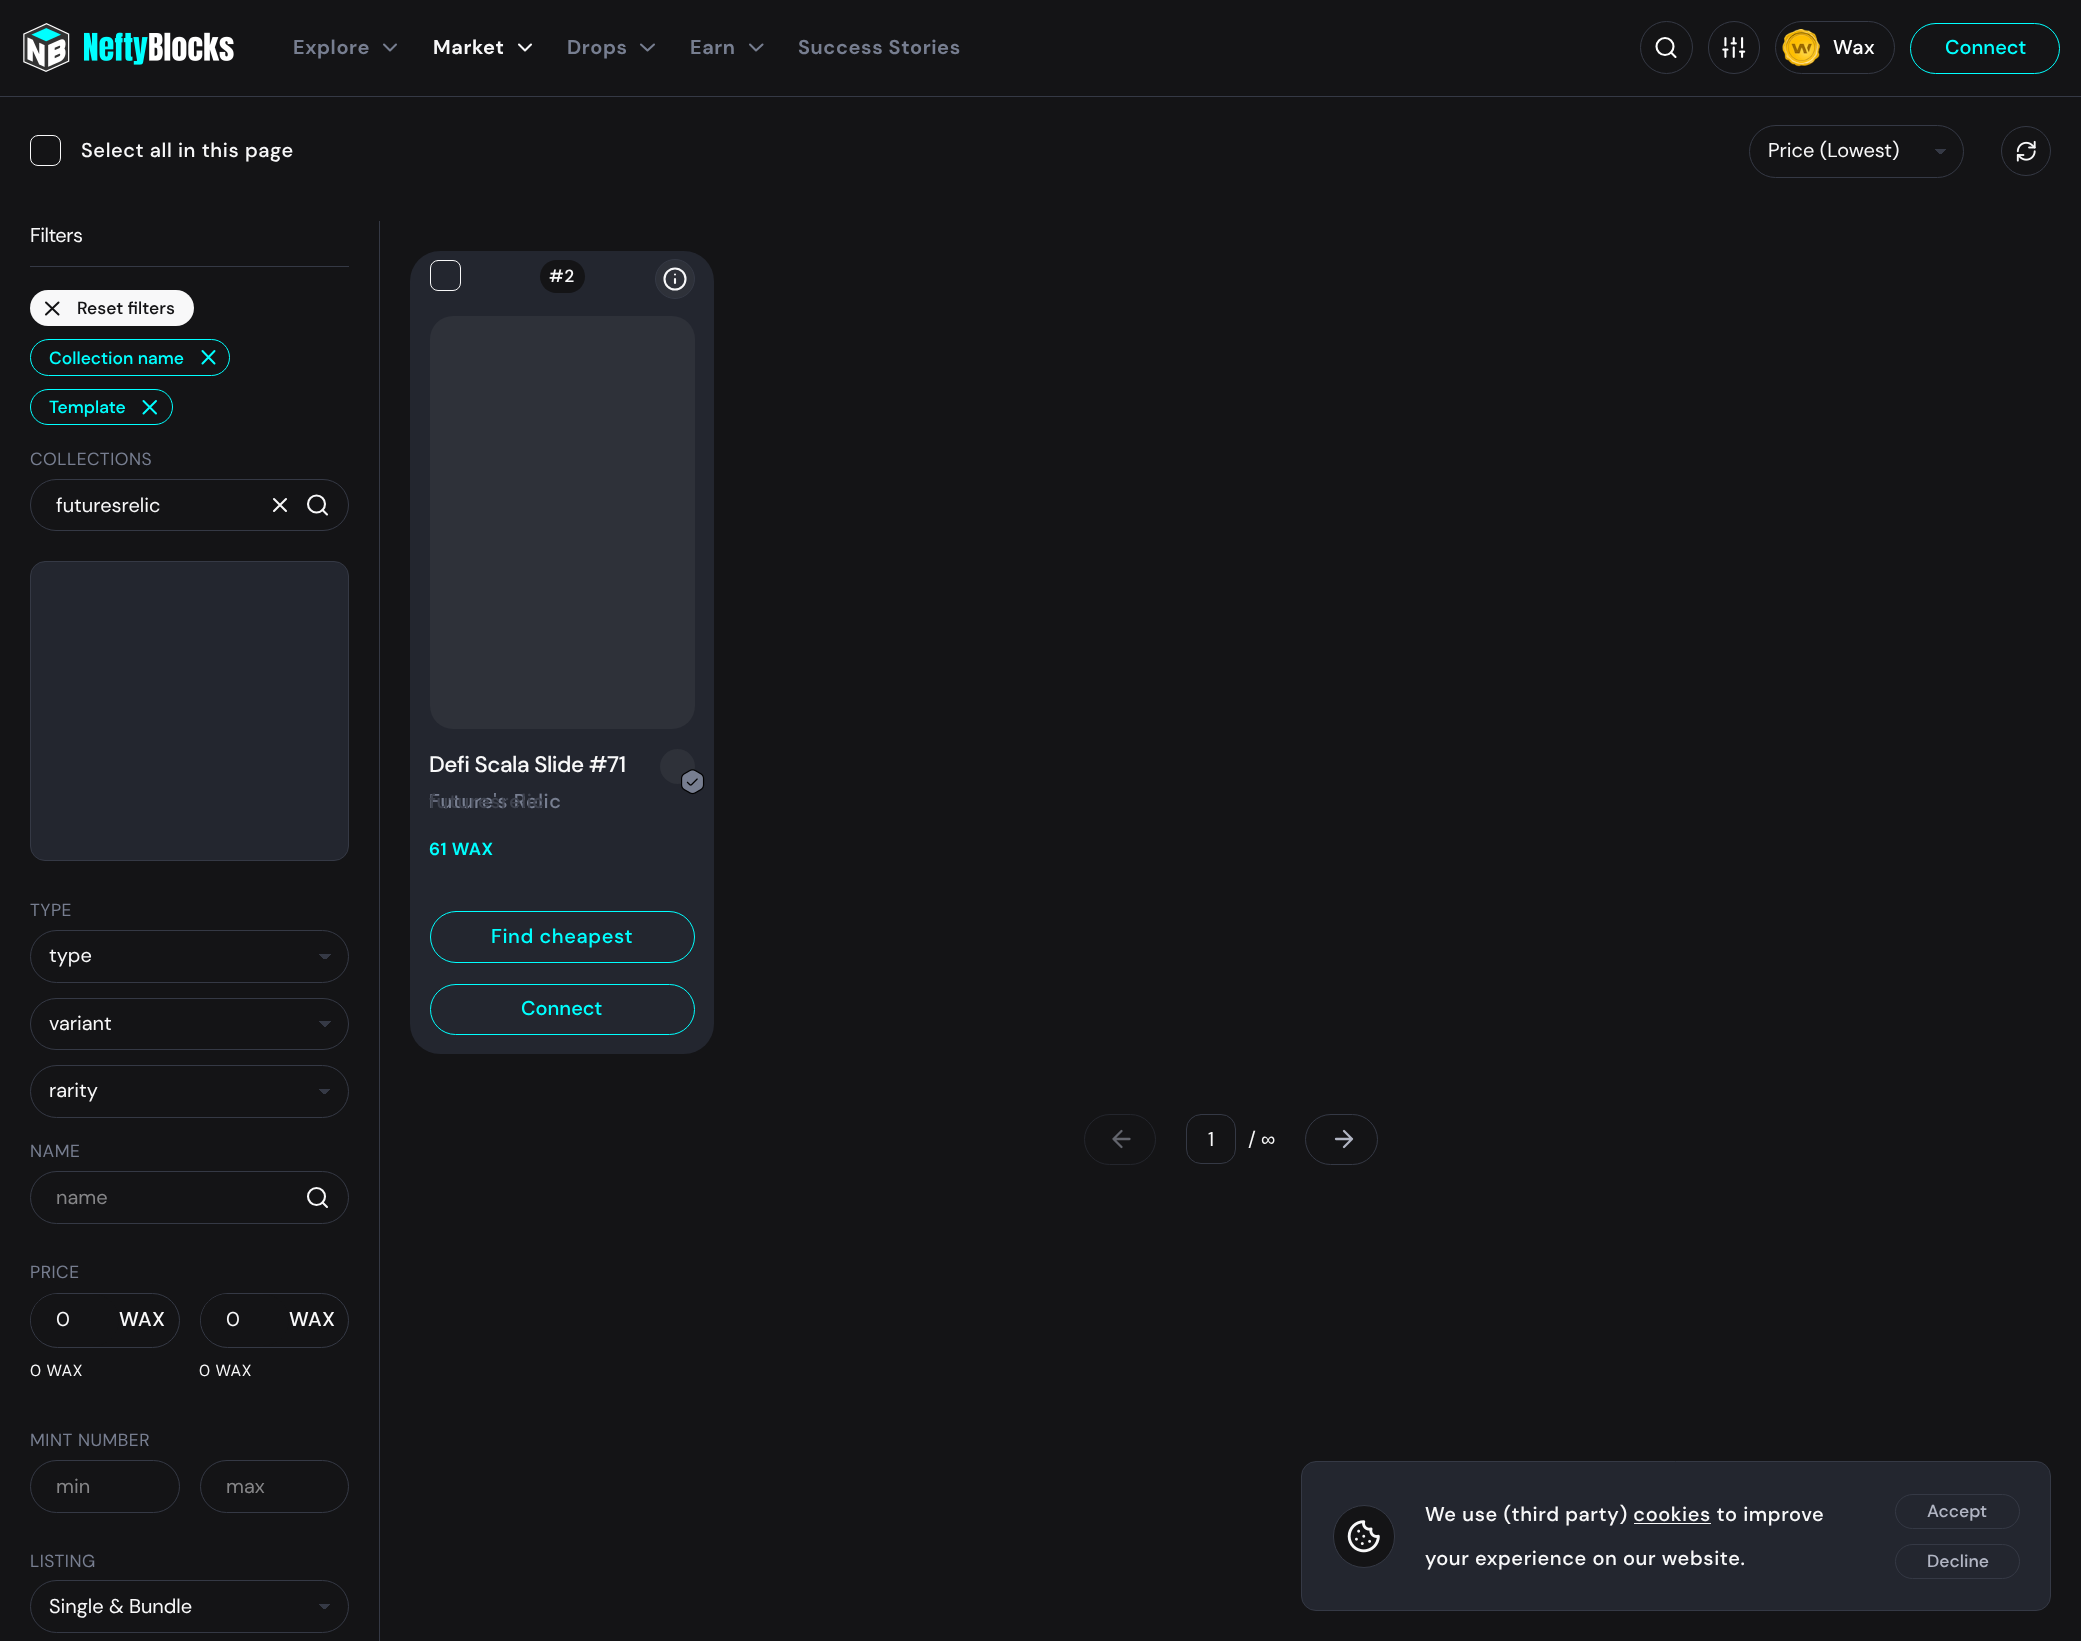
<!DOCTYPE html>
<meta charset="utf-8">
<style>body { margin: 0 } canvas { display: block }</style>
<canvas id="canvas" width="2081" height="1641"></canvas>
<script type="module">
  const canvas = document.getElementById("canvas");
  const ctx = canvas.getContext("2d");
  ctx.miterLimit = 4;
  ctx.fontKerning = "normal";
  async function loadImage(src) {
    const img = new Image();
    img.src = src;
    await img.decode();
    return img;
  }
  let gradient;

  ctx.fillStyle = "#141416";
  ctx.fillRect(0, 0, 2081, 1641);
  ctx.fillStyle = "#353945";
  ctx.fillRect(0, 96, 2081, 1);
  ctx.drawImage(await loadImage("img1.png"), 23, 23, 47, 49);
  ctx.drawImage(await loadImage("img2.png"), 84, 32, 150, 33);
  ctx.letterSpacing = "0.6px";
  ctx.font = "bold 20px DM Sans";
  ctx.fillStyle = "#777e90";
  ctx.fillText("Explore", 293, 54);
  ctx.beginPath();
  ctx.moveTo(384, 44.5);
  ctx.lineTo(390, 50.5);
  ctx.lineTo(396, 44.5);
  ctx.strokeStyle = "#777e90";
  ctx.lineWidth = 2.1;
  ctx.lineCap = "round";
  ctx.lineJoin = "round";
  ctx.stroke();
  ctx.fillStyle = "#f8f8f9";
  ctx.fillText("Market", 433, 54);
  ctx.beginPath();
  ctx.moveTo(519, 44.5);
  ctx.lineTo(525, 50.5);
  ctx.lineTo(531, 44.5);
  ctx.strokeStyle = "#f8f8f9";
  ctx.stroke();
  ctx.fillStyle = "#777e90";
  ctx.fillText("Drops", 567, 54);
  ctx.beginPath();
  ctx.moveTo(641, 44.5);
  ctx.lineTo(647.5, 50.5);
  ctx.lineTo(654, 44.5);
  ctx.strokeStyle = "#777e90";
  ctx.stroke();
  ctx.fillText("Earn", 690, 54);
  ctx.beginPath();
  ctx.moveTo(750, 44.5);
  ctx.lineTo(756, 50.5);
  ctx.lineTo(762.5, 44.5);
  ctx.stroke();
  ctx.fillText("Success Stories", 798, 54);
  ctx.beginPath();
  ctx.arc(1666.5, 47.5, 26, 0, Math.PI * 2);
  ctx.strokeStyle = "#353945";
  ctx.lineWidth = 1;
  ctx.stroke();
  ctx.beginPath();
  ctx.arc(1665, 46.5, 8.5, 0, Math.PI * 2);
  ctx.strokeStyle = "#ffffff";
  ctx.lineWidth = 2.1;
  ctx.stroke();
  ctx.beginPath();
  ctx.moveTo(1675.5, 57);
  ctx.lineTo(1671, 52.5);
  ctx.stroke();
  ctx.beginPath();
  ctx.roundRect(1708.5, 21.5, 51, 52, 25.5);
  ctx.strokeStyle = "#353945";
  ctx.lineWidth = 1;
  ctx.lineJoin = "miter";
  ctx.stroke();
  ctx.drawImage(await loadImage("img3.png"), 1722, 37, 24, 21);
  ctx.beginPath();
  ctx.roundRect(1775.5, 21.5, 119, 52, 26);
  ctx.stroke();
  ctx.drawImage(await loadImage("img4.png"), 1782, 29, 38, 38);
  ctx.font = "500 20px DM Sans";
  ctx.fillStyle = "#ffffff";
  ctx.fillText("Wax", 1833, 54);
  ctx.beginPath();
  ctx.roundRect(1910.5, 23.5, 149, 50, 25);
  ctx.strokeStyle = "#00ffff";
  ctx.stroke();
  ctx.letterSpacing = "0px";
  ctx.fillStyle = "#00ffff";
  ctx.fillText("Connect", 1945, 54);
  ctx.beginPath();
  ctx.roundRect(30.5, 135.5, 30, 30, 7.5);
  ctx.strokeStyle = "#f8f8f9";
  ctx.stroke();
  ctx.letterSpacing = "0.6px";
  ctx.fillStyle = "#f8f8f9";
  ctx.fillText("Select all in this page", 81, 157);
  gradient = ctx.createLinearGradient(1940, 149, 1946, 155);
  gradient.addColorStop(0.5, "#353945");
  gradient.addColorStop(0.5, "#141416");
  ctx.fillStyle = gradient;
  ctx.fillRect(1940, 149, 6, 5);
  gradient = ctx.createLinearGradient(1934, 155, 1940, 149);
  gradient.addColorStop(0.5, "#141416");
  gradient.addColorStop(0.5, "#353945");
  ctx.fillStyle = gradient;
  ctx.fillRect(1934, 149, 6, 5);
  ctx.beginPath();
  ctx.roundRect(1749.5, 125.5, 214, 52, 26);
  ctx.strokeStyle = "#353945";
  ctx.stroke();
  ctx.letterSpacing = "0px";
  ctx.font = "20px DM Sans";
  ctx.fillStyle = "#f8f8f9";
  ctx.fillText("Price (Lowest)", 1768, 157);
  ctx.beginPath();
  ctx.arc(2026, 151, 24.5, 0, Math.PI * 2);
  ctx.stroke();
  ctx.drawImage(await loadImage("img5.png"), 2016, 140, 20, 22);
  ctx.fillStyle = "#353945";
  ctx.fillRect(379, 221, 1, 1420);
  ctx.fillRect(30, 266, 319, 1);
  ctx.letterSpacing = "-0.5px";
  ctx.fillStyle = "#f8f8f9";
  ctx.fillText("Filters", 30, 242);
  ctx.beginPath();
  ctx.roundRect(30, 290, 164, 36, 18);
  ctx.fill();
  ctx.beginPath();
  ctx.moveTo(58.5, 302.5);
  ctx.lineTo(46, 314.5);
  ctx.moveTo(46, 302.5);
  ctx.lineTo(58.5, 314.5);
  ctx.strokeStyle = "#141416";
  ctx.lineWidth = 2;
  ctx.lineJoin = "round";
  ctx.stroke();
  ctx.letterSpacing = "0px";
  ctx.font = "500 17.5px DM Sans";
  ctx.fillStyle = "#141416";
  ctx.fillText("Reset filters", 77, 314);
  ctx.beginPath();
  ctx.roundRect(30.5, 339.5, 199, 36, 18);
  ctx.strokeStyle = "#00ffff";
  ctx.lineWidth = 1;
  ctx.lineJoin = "miter";
  ctx.stroke();
  ctx.fillStyle = "#00ffff";
  ctx.fillText("Collection name", 49, 364);
  ctx.beginPath();
  ctx.moveTo(214.5, 351);
  ctx.lineTo(202.5, 363.5);
  ctx.moveTo(202.5, 351);
  ctx.lineTo(214.5, 363.5);
  ctx.lineWidth = 2;
  ctx.lineJoin = "round";
  ctx.stroke();
  ctx.beginPath();
  ctx.roundRect(30.5, 389.5, 142, 35, 17.5);
  ctx.lineWidth = 1;
  ctx.lineJoin = "miter";
  ctx.stroke();
  ctx.fillText("Template", 49, 413);
  ctx.beginPath();
  ctx.moveTo(156, 401);
  ctx.lineTo(143.5, 413.5);
  ctx.moveTo(143.5, 401);
  ctx.lineTo(156, 413.5);
  ctx.lineWidth = 2;
  ctx.lineJoin = "round";
  ctx.stroke();
  ctx.letterSpacing = "0.5px";
  ctx.font = "17.5px DM Sans";
  ctx.fillStyle = "#777e90";
  ctx.fillText("COLLECTIONS", 30, 465);
  ctx.beginPath();
  ctx.roundRect(30.5, 479.5, 318, 51, 25.5);
  ctx.strokeStyle = "#353945";
  ctx.lineWidth = 1;
  ctx.lineJoin = "miter";
  ctx.stroke();
  ctx.letterSpacing = "0px";
  ctx.font = "20px DM Sans";
  ctx.fillStyle = "#f8f8f9";
  ctx.fillText("futuresrelic", 56, 512);
  ctx.beginPath();
  ctx.moveTo(286, 499);
  ctx.lineTo(274, 511);
  ctx.moveTo(274, 499);
  ctx.lineTo(286, 511);
  ctx.strokeStyle = "#f8f8f9";
  ctx.lineWidth = 2.1;
  ctx.lineJoin = "round";
  ctx.stroke();
  ctx.beginPath();
  ctx.arc(316.5, 504, 8.5, 0, Math.PI * 2);
  ctx.stroke();
  ctx.beginPath();
  ctx.moveTo(327, 514.5);
  ctx.lineTo(322.5, 510);
  ctx.stroke();
  ctx.fillStyle = "#23262f";
  ctx.beginPath();
  ctx.roundRect(30.5, 561.5, 318, 299, 14.5);
  ctx.fill();
  ctx.strokeStyle = "#353945";
  ctx.lineWidth = 1;
  ctx.lineJoin = "miter";
  ctx.stroke();
  ctx.letterSpacing = "0.5px";
  ctx.font = "17.5px DM Sans";
  ctx.fillStyle = "#777e90";
  ctx.fillText("TYPE", 30, 916);
  gradient = ctx.createLinearGradient(325, 954, 331, 960);
  gradient.addColorStop(0.5, "#353945");
  gradient.addColorStop(0.5, "#141416");
  ctx.fillStyle = gradient;
  ctx.fillRect(325, 954, 6, 5);
  gradient = ctx.createLinearGradient(319, 960, 325, 954);
  gradient.addColorStop(0.5, "#141416");
  gradient.addColorStop(0.5, "#353945");
  ctx.fillStyle = gradient;
  ctx.fillRect(319, 954, 6, 5);
  ctx.beginPath();
  ctx.roundRect(30.5, 930.5, 318, 52, 26);
  ctx.stroke();
  ctx.letterSpacing = "0px";
  ctx.font = "20px DM Sans";
  ctx.fillStyle = "#f8f8f9";
  ctx.fillText("type", 49, 962);
  gradient = ctx.createLinearGradient(325, 1021, 331, 1028);
  gradient.addColorStop(0.5, "#353945");
  gradient.addColorStop(0.5, "#141416");
  ctx.fillStyle = gradient;
  ctx.fillRect(325, 1021, 6, 7);
  gradient = ctx.createLinearGradient(319, 1028, 325, 1021);
  gradient.addColorStop(0.5, "#141416");
  gradient.addColorStop(0.5, "#353945");
  ctx.fillStyle = gradient;
  ctx.fillRect(319, 1021, 6, 7);
  ctx.beginPath();
  ctx.roundRect(30.5, 998.5, 318, 51, 25.5);
  ctx.stroke();
  ctx.fillStyle = "#f8f8f9";
  ctx.fillText("variant", 49, 1030);
  gradient = ctx.createLinearGradient(325, 1089, 331, 1095);
  gradient.addColorStop(0.5, "#353945");
  gradient.addColorStop(0.5, "#141416");
  ctx.fillStyle = gradient;
  ctx.fillRect(325, 1089, 6, 5);
  gradient = ctx.createLinearGradient(319, 1095, 325, 1089);
  gradient.addColorStop(0.5, "#141416");
  gradient.addColorStop(0.5, "#353945");
  ctx.fillStyle = gradient;
  ctx.fillRect(319, 1089, 6, 5);
  ctx.beginPath();
  ctx.roundRect(30.5, 1065.5, 318, 52, 26);
  ctx.stroke();
  ctx.fillStyle = "#f8f8f9";
  ctx.fillText("rarity", 49, 1097);
  ctx.letterSpacing = "0.5px";
  ctx.font = "17.5px DM Sans";
  ctx.fillStyle = "#777e90";
  ctx.fillText("NAME", 30, 1157);
  ctx.beginPath();
  ctx.roundRect(30.5, 1171.5, 318, 52, 26);
  ctx.stroke();
  ctx.letterSpacing = "0px";
  ctx.font = "20px DM Sans";
  ctx.fillStyle = "#868688";
  ctx.fillText("name", 56, 1204);
  ctx.beginPath();
  ctx.arc(316.5, 1196.5, 8.5, 0, Math.PI * 2);
  ctx.strokeStyle = "#f8f8f9";
  ctx.lineWidth = 2.1;
  ctx.stroke();
  ctx.beginPath();
  ctx.moveTo(327, 1207);
  ctx.lineTo(322.5, 1202.5);
  ctx.lineJoin = "round";
  ctx.stroke();
  ctx.letterSpacing = "0.5px";
  ctx.font = "17.5px DM Sans";
  ctx.fillStyle = "#777e90";
  ctx.fillText("PRICE", 30, 1278);
  ctx.beginPath();
  ctx.roundRect(30.5, 1293.5, 149, 54, 27);
  ctx.strokeStyle = "#353945";
  ctx.lineWidth = 1;
  ctx.lineJoin = "miter";
  ctx.stroke();
  ctx.fillStyle = "#141416";
  ctx.beginPath();
  ctx.roundRect(31, 1294, 88, 52, 26);
  ctx.fill();
  ctx.letterSpacing = "0px";
  ctx.font = "20px DM Sans";
  ctx.fillStyle = "#f8f8f9";
  ctx.fillText("0", 56, 1326);
  ctx.letterSpacing = "0.6px";
  ctx.font = "500 20px DM Sans";
  ctx.fillText("WAX", 119, 1326);
  ctx.font = "16px DM Sans";
  ctx.fillText("0 WAX", 30, 1376);
  ctx.beginPath();
  ctx.roundRect(200.5, 1293.5, 148, 54, 27);
  ctx.stroke();
  ctx.fillStyle = "#141416";
  ctx.beginPath();
  ctx.roundRect(201, 1294, 88, 52, 26);
  ctx.fill();
  ctx.letterSpacing = "0px";
  ctx.font = "20px DM Sans";
  ctx.fillStyle = "#f8f8f9";
  ctx.fillText("0", 226, 1326);
  ctx.letterSpacing = "0.6px";
  ctx.font = "500 20px DM Sans";
  ctx.fillText("WAX", 289, 1326);
  ctx.font = "16px DM Sans";
  ctx.fillText("0 WAX", 199, 1376);
  ctx.letterSpacing = "0.5px";
  ctx.font = "17.5px DM Sans";
  ctx.fillStyle = "#777e90";
  ctx.fillText("MINT NUMBER", 30, 1446);
  ctx.beginPath();
  ctx.roundRect(30.5, 1460.5, 149, 52, 26);
  ctx.stroke();
  ctx.letterSpacing = "0px";
  ctx.font = "20px DM Sans";
  ctx.fillStyle = "#868688";
  ctx.fillText("min", 56, 1493);
  ctx.beginPath();
  ctx.roundRect(200.5, 1460.5, 148, 52, 26);
  ctx.stroke();
  ctx.fillText("max", 226, 1493);
  ctx.letterSpacing = "0.5px";
  ctx.font = "17.5px DM Sans";
  ctx.fillStyle = "#777e90";
  ctx.fillText("LISTING", 30, 1567);
  gradient = ctx.createLinearGradient(325, 1604, 331, 1610);
  gradient.addColorStop(0.5, "#353945");
  gradient.addColorStop(0.5, "#141416");
  ctx.fillStyle = gradient;
  ctx.fillRect(325, 1604, 6, 5);
  gradient = ctx.createLinearGradient(319, 1610, 325, 1604);
  gradient.addColorStop(0.5, "#141416");
  gradient.addColorStop(0.5, "#353945");
  ctx.fillStyle = gradient;
  ctx.fillRect(319, 1604, 6, 5);
  ctx.beginPath();
  ctx.roundRect(30.5, 1580.5, 318, 52, 26);
  ctx.stroke();
  ctx.letterSpacing = "0px";
  ctx.font = "20px DM Sans";
  ctx.fillStyle = "#f8f8f9";
  ctx.fillText("Single & Bundle", 49, 1613);
  ctx.fillStyle = "#23262f";
  ctx.beginPath();
  ctx.roundRect(410, 251, 304, 803, 30);
  ctx.fill();
  ctx.beginPath();
  ctx.roundRect(430.5, 260.5, 30, 30, 7.5);
  ctx.strokeStyle = "#f8f8f9";
  ctx.stroke();
  ctx.fillStyle = "#141416";
  ctx.beginPath();
  ctx.roundRect(540, 260, 45, 33, 16.5);
  ctx.fill();
  ctx.letterSpacing = "0.5px";
  ctx.font = "500 17.5px DM Sans";
  ctx.fillStyle = "#f8f8f9";
  ctx.fillText("#2", 549, 282);
  ctx.fillStyle = "#2e3139";
  ctx.beginPath();
  ctx.arc(675, 279, 19.5, 0, Math.PI * 2);
  ctx.fill();
  ctx.strokeStyle = "#353945";
  ctx.stroke();
  ctx.beginPath();
  ctx.arc(675, 279, 10.5, 0, Math.PI * 2);
  ctx.strokeStyle = "#f8f8f9";
  ctx.lineWidth = 2.1;
  ctx.stroke();
  ctx.beginPath();
  ctx.moveTo(675, 283);
  ctx.lineTo(675, 279);
  ctx.moveTo(675, 274.5);
  ctx.lineTo(675, 274.5);
  ctx.lineJoin = "round";
  ctx.stroke();
  ctx.beginPath();
  ctx.roundRect(430, 316, 265, 413, 23);
  ctx.fill();
  ctx.letterSpacing = "-0.5px";
  ctx.font = "500 22.5px DM Sans";
  ctx.fillStyle = "#f8f8f9";
  ctx.fillText("Defi Scala Slide #71", 429, 772);
  ctx.fillStyle = "#2e3139";
  ctx.beginPath();
  ctx.arc(677.5, 766.5, 17.5, 0, Math.PI * 2);
  ctx.fill();
  ctx.drawImage(await loadImage("img6.png"), 681, 769, 24, 26);
  ctx.letterSpacing = "0.6px";
  ctx.font = "500 20px DM Sans";
  ctx.fillStyle = "#777e90";
  ctx.fillText("Future's Relic", 429, 808);
  ctx.fillStyle = "#3e424e";
  ctx.fillText("futuresrelic", 429, 808);
  ctx.letterSpacing = "0.5px";
  ctx.font = "bold 17.5px DM Sans";
  ctx.fillStyle = "#00ffff";
  ctx.fillText("61 WAX", 429, 855);
  ctx.beginPath();
  ctx.roundRect(430.5, 911.5, 264, 51, 25.5);
  ctx.strokeStyle = "#00ffff";
  ctx.lineWidth = 1;
  ctx.lineJoin = "miter";
  ctx.stroke();
  ctx.letterSpacing = "0.6px";
  ctx.font = "500 20px DM Sans";
  ctx.fillText("Find cheapest", 491, 943);
  ctx.beginPath();
  ctx.roundRect(430.5, 984.5, 264, 50, 25);
  ctx.stroke();
  ctx.letterSpacing = "0px";
  ctx.fillText("Connect", 521, 1015);
  ctx.beginPath();
  ctx.roundRect(1084.5, 1114.5, 71, 50, 25);
  ctx.strokeStyle = "#24262d";
  ctx.stroke();
  ctx.beginPath();
  ctx.moveTo(1129.5, 1139);
  ctx.lineTo(1113.5, 1139);
  ctx.moveTo(1121.5, 1147);
  ctx.lineTo(1113.5, 1139);
  ctx.lineTo(1121.5, 1131);
  ctx.strokeStyle = "#63656d";
  ctx.lineWidth = 2.3;
  ctx.lineJoin = "round";
  ctx.stroke();
  ctx.beginPath();
  ctx.roundRect(1186.5, 1114.5, 49, 49, 14.5);
  ctx.strokeStyle = "#353945";
  ctx.lineWidth = 1;
  ctx.lineJoin = "miter";
  ctx.stroke();
  ctx.font = "20px DM Sans";
  ctx.fillStyle = "#f8f8f9";
  ctx.fillText("1", 1208, 1146);
  ctx.fillText("/", 1248, 1146);
  ctx.font = "20px Liberation Sans";
  ctx.fillText("∞", 1261, 1146);
  ctx.beginPath();
  ctx.roundRect(1305.5, 1114.5, 72, 50, 25);
  ctx.stroke();
  ctx.beginPath();
  ctx.moveTo(1336, 1139);
  ctx.lineTo(1352, 1139);
  ctx.moveTo(1344, 1131);
  ctx.lineTo(1352, 1139);
  ctx.lineTo(1344, 1147);
  ctx.strokeStyle = "#b1b5c3";
  ctx.lineWidth = 2.3;
  ctx.lineJoin = "round";
  ctx.stroke();
  ctx.fillStyle = "#23262f";
  ctx.beginPath();
  ctx.roundRect(1301.5, 1461.5, 749, 149, 14.5);
  ctx.fill();
  ctx.strokeStyle = "#353945";
  ctx.lineWidth = 1;
  ctx.lineJoin = "miter";
  ctx.stroke();
  ctx.fillStyle = "#141416";
  ctx.beginPath();
  ctx.roundRect(1333.5, 1505.5, 61, 62, 30.5);
  ctx.fill();
  ctx.stroke();
  ctx.drawImage(await loadImage("img7.png"), 1347, 1520, 33, 33);
  ctx.letterSpacing = "0.6px";
  ctx.font = "500 20px DM Sans";
  ctx.fillStyle = "#f8f8f9";
  ctx.fillText("We use (third party) cookies to improve", 1425, 1521);
  ctx.fillRect(1634, 1523, 77, 1);
  ctx.fillText("your experience on our website.", 1425, 1565);
  ctx.beginPath();
  ctx.roundRect(1895.5, 1494.5, 124, 34, 17);
  ctx.stroke();
  ctx.letterSpacing = "0px";
  ctx.font = "500 17.5px DM Sans";
  ctx.fillStyle = "#b1b5c3";
  ctx.fillText("Accept", 1927, 1517);
  ctx.beginPath();
  ctx.roundRect(1895.5, 1544.5, 124, 34, 17);
  ctx.stroke();
  ctx.fillText("Decline", 1927, 1567);
</script>
